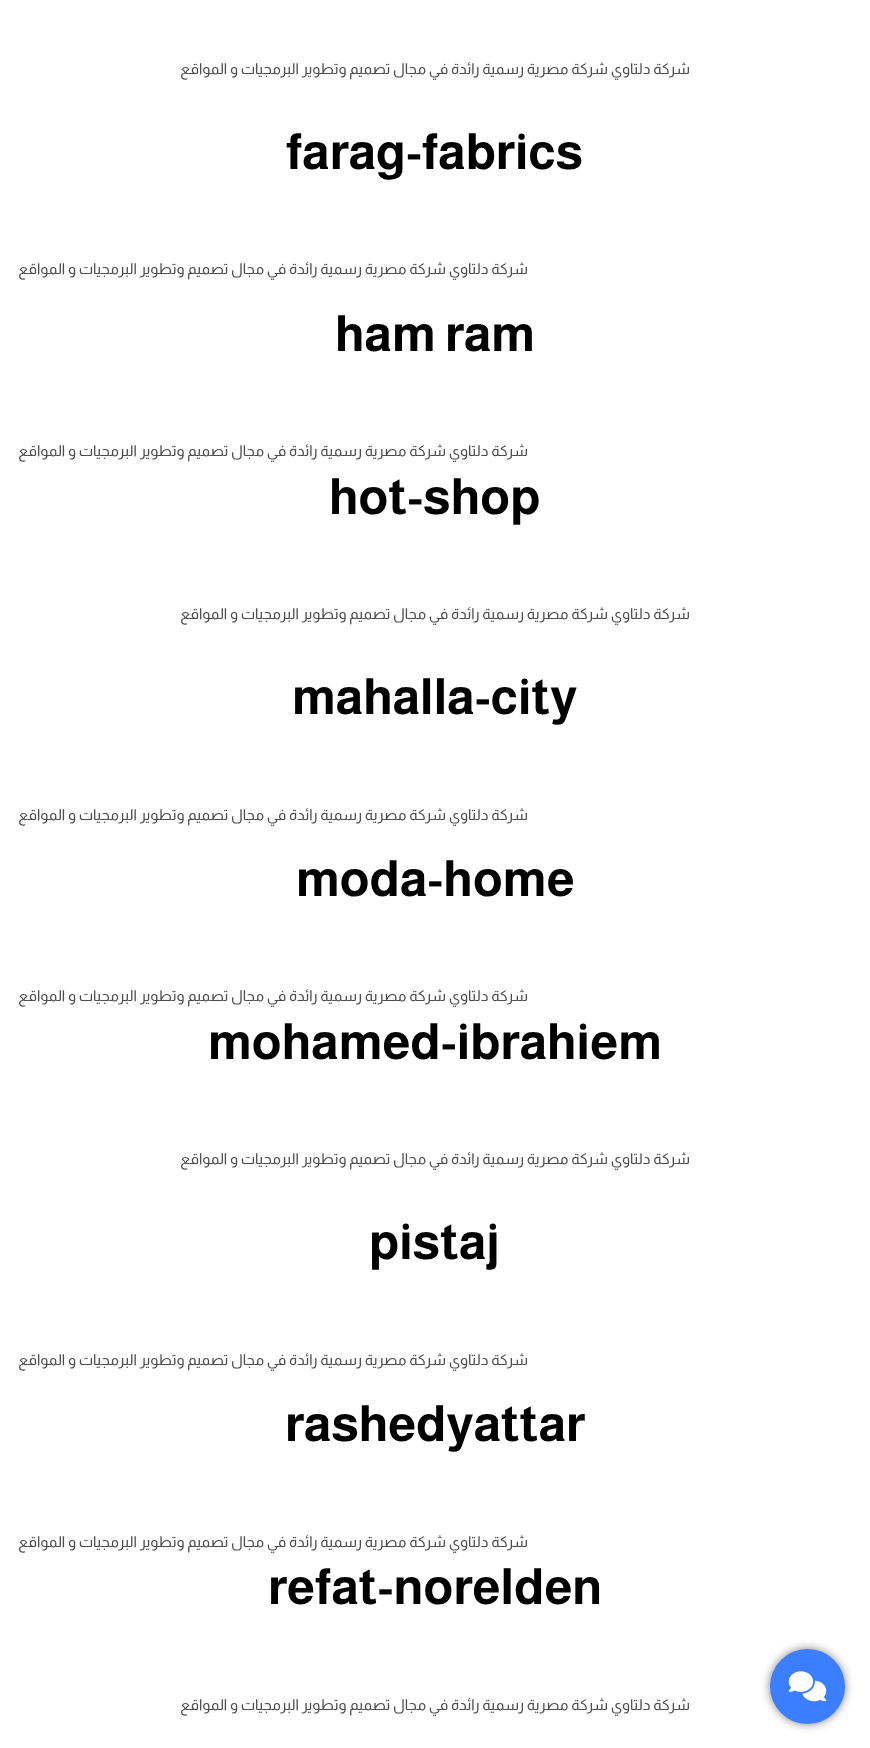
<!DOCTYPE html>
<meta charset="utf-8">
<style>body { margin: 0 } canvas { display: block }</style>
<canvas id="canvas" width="870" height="1748"></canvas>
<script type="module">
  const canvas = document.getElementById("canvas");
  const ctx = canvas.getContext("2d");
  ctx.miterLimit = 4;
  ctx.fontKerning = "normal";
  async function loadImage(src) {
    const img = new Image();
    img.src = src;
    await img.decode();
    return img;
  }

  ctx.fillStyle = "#ffffff";
  ctx.fillRect(0, 0, 870, 1748);
  ctx.fillStyle = "rgba(0, 0, 0, 0.5)";
  ctx.filter = "blur(5px)";
  ctx.beginPath();
  ctx.roundRect(770, 1649, 75, 75, 37.5);
  ctx.fill();
  ctx.filter = "none";
  ctx.fillStyle = "#3b7eff";
  ctx.beginPath();
  ctx.arc(807.5, 1686.5, 37.5, 0, Math.PI * 2);
  ctx.fill();
  ctx.drawImage(await loadImage("img1.png"), 788, 1671, 39, 31);
  ctx.direction = "rtl";
  ctx.font = "15px Almarai";
  ctx.fillStyle = "#4c4c4d";
  ctx.fillText("شركة دلتاوي شركة مصرية رسمية رائدة في مجال تصميم وتطوير البرمجيات و المواقع", 690, 74);
  ctx.direction = "ltr";
  ctx.font = "bold 50px Almarai";
  ctx.fillStyle = "#000000";
  ctx.fillText("farag-fabrics", 286, 169);
  ctx.direction = "rtl";
  ctx.font = "15px Almarai";
  ctx.fillStyle = "#4c4c4d";
  ctx.fillText("شركة دلتاوي شركة مصرية رسمية رائدة في مجال تصميم وتطوير البرمجيات و المواقع", 528, 274);
  ctx.direction = "ltr";
  ctx.font = "bold 50px Almarai";
  ctx.fillStyle = "#000000";
  ctx.fillText("ham ram", 335, 351);
  ctx.direction = "rtl";
  ctx.font = "15px Almarai";
  ctx.fillStyle = "#4c4c4d";
  ctx.fillText("شركة دلتاوي شركة مصرية رسمية رائدة في مجال تصميم وتطوير البرمجيات و المواقع", 528, 456);
  ctx.direction = "ltr";
  ctx.font = "bold 50px Almarai";
  ctx.fillStyle = "#000000";
  ctx.fillText("hot-shop", 329, 514);
  ctx.direction = "rtl";
  ctx.font = "15px Almarai";
  ctx.fillStyle = "#4c4c4d";
  ctx.fillText("شركة دلتاوي شركة مصرية رسمية رائدة في مجال تصميم وتطوير البرمجيات و المواقع", 690, 619);
  ctx.direction = "ltr";
  ctx.font = "bold 50px Almarai";
  ctx.fillStyle = "#000000";
  ctx.fillText("mahalla-city", 292, 714);
  ctx.direction = "rtl";
  ctx.font = "15px Almarai";
  ctx.fillStyle = "#4c4c4d";
  ctx.fillText("شركة دلتاوي شركة مصرية رسمية رائدة في مجال تصميم وتطوير البرمجيات و المواقع", 528, 820);
  ctx.direction = "ltr";
  ctx.font = "bold 50px Almarai";
  ctx.fillStyle = "#000000";
  ctx.fillText("moda-home", 296, 896);
  ctx.direction = "rtl";
  ctx.font = "15px Almarai";
  ctx.fillStyle = "#4c4c4d";
  ctx.fillText("شركة دلتاوي شركة مصرية رسمية رائدة في مجال تصميم وتطوير البرمجيات و المواقع", 528, 1001);
  ctx.direction = "ltr";
  ctx.font = "bold 50px Almarai";
  ctx.fillStyle = "#000000";
  ctx.fillText("mohamed-ibrahiem", 208, 1059);
  ctx.direction = "rtl";
  ctx.font = "15px Almarai";
  ctx.fillStyle = "#4c4c4d";
  ctx.fillText("شركة دلتاوي شركة مصرية رسمية رائدة في مجال تصميم وتطوير البرمجيات و المواقع", 690, 1164);
  ctx.direction = "ltr";
  ctx.font = "bold 50px Almarai";
  ctx.fillStyle = "#000000";
  ctx.fillText("pistaj", 369, 1259);
  ctx.direction = "rtl";
  ctx.font = "15px Almarai";
  ctx.fillStyle = "#4c4c4d";
  ctx.fillText("شركة دلتاوي شركة مصرية رسمية رائدة في مجال تصميم وتطوير البرمجيات و المواقع", 528, 1365);
  ctx.direction = "ltr";
  ctx.font = "bold 50px Almarai";
  ctx.fillStyle = "#000000";
  ctx.fillText("rashedyattar", 285, 1441);
  ctx.direction = "rtl";
  ctx.font = "15px Almarai";
  ctx.fillStyle = "#4c4c4d";
  ctx.fillText("شركة دلتاوي شركة مصرية رسمية رائدة في مجال تصميم وتطوير البرمجيات و المواقع", 528, 1547);
  ctx.direction = "ltr";
  ctx.font = "bold 50px Almarai";
  ctx.fillStyle = "#000000";
  ctx.fillText("refat-norelden", 268, 1604);
  ctx.direction = "rtl";
  ctx.font = "15px Almarai";
  ctx.fillStyle = "#4c4c4d";
  ctx.fillText("شركة دلتاوي شركة مصرية رسمية رائدة في مجال تصميم وتطوير البرمجيات و المواقع", 690, 1710);
</script>
